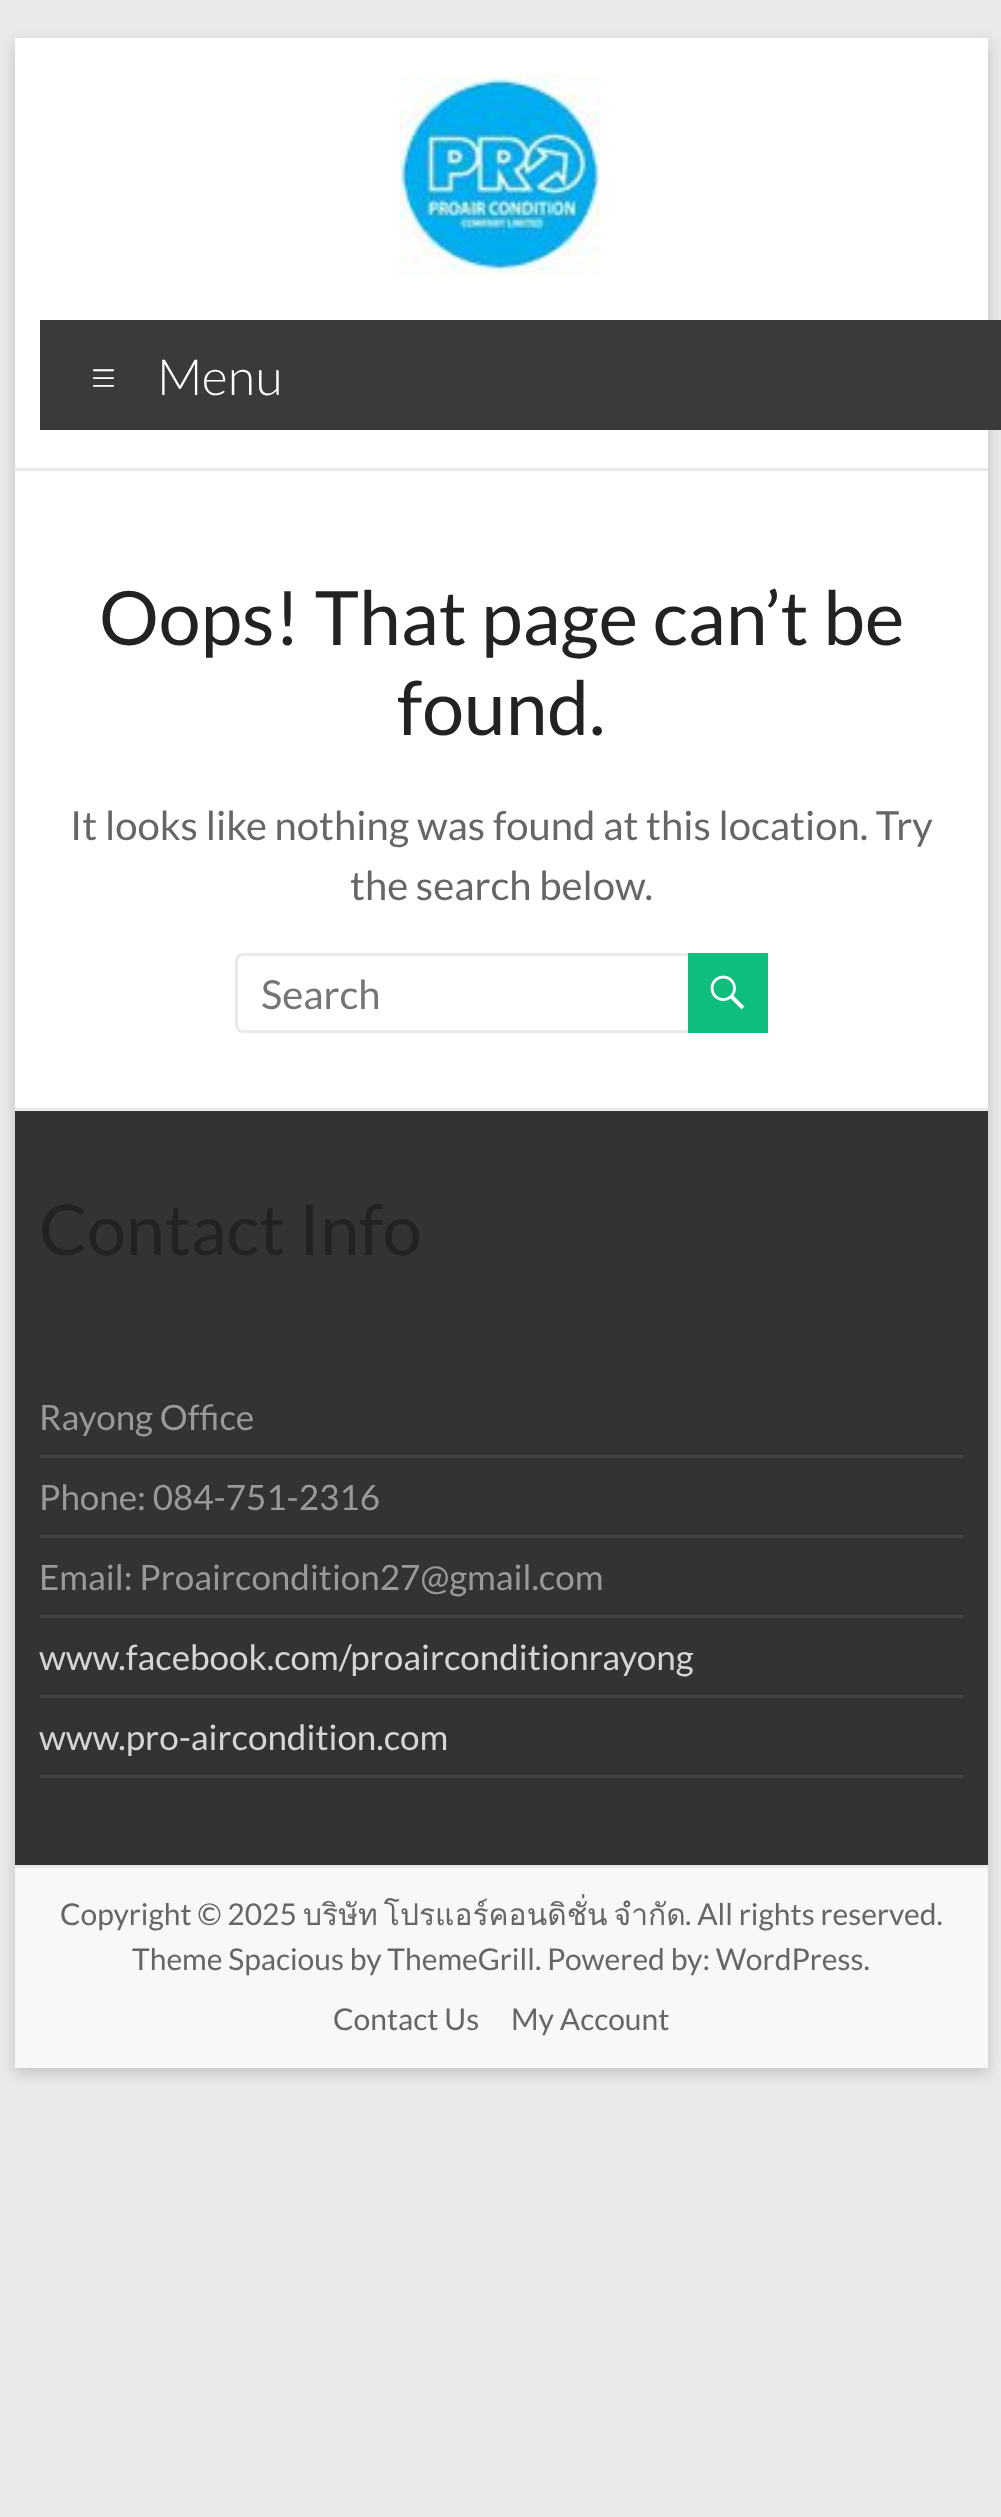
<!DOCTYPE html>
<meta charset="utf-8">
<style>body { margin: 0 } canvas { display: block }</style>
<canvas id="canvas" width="1001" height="2517"></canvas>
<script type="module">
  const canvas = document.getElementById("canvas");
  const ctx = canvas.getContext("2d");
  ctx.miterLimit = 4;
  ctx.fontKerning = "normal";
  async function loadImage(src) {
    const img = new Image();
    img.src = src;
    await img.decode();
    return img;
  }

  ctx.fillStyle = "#eaeaea";
  ctx.fillRect(0, 0, 1001, 2517);
  ctx.fillStyle = "rgba(100, 100, 100, 0.3)";
  ctx.filter = "blur(7.5px)";
  ctx.beginPath();
  ctx.rect(15, 43, 973, 2030);
  ctx.fill();
  ctx.filter = "none";
  ctx.fillStyle = "#ffffff";
  ctx.fillRect(15, 38, 973, 1070);
  ctx.fillStyle = "#eaeaea";
  ctx.fillRect(15, 468, 973, 3);
  ctx.drawImage(await loadImage("img1.png"), 400, 75, 200, 200);
  ctx.fillStyle = "#3a3a3a";
  ctx.fillRect(40, 320, 961, 110);
  ctx.font = "300 50px Lato";
  ctx.fillStyle = "#ffffff";
  ctx.fillText("≡", 89, 395);
  ctx.fillText("Menu", 157, 395);
  ctx.font = "75px Lato";
  ctx.fillStyle = "#222222";
  ctx.fillText("Oops! That page can’t be", 99, 645);
  ctx.fillText("found.", 397, 735);
  ctx.font = "40px Lato";
  ctx.fillStyle = "#666666";
  ctx.fillText("It looks like nothing was found at this location. Try", 70, 840);
  ctx.fillText("the search below.", 350, 900);
  ctx.beginPath();
  ctx.roundRect(236.5, 954.5, 457, 77, 6.5);
  ctx.strokeStyle = "#eaeaea";
  ctx.lineWidth = 3;
  ctx.stroke();
  ctx.fillStyle = "#757575";
  ctx.fillText("Search", 261, 1009);
  ctx.fillStyle = "#0fbe7c";
  ctx.fillRect(688, 953, 80, 80);
  ctx.drawImage(await loadImage("img2.png"), 710, 975, 35, 35);
  ctx.fillStyle = "#333333";
  ctx.fillRect(15, 1111, 973, 754);
  ctx.fillStyle = "#eaeaea";
  ctx.fillRect(15, 1108, 973, 3);
  ctx.font = "70px Lato";
  ctx.fillStyle = "#222222";
  ctx.fillText("Contact Info", 39, 1255);
  ctx.fillStyle = "#444444";
  ctx.fillRect(40, 1455, 923, 3);
  ctx.font = "35px Lato";
  ctx.fillStyle = "#999999";
  ctx.fillText("Rayong Office", 39, 1430);
  ctx.fillStyle = "#444444";
  ctx.fillRect(40, 1535, 923, 3);
  ctx.fillStyle = "#999999";
  ctx.fillText("Phone: 084-751-2316", 39, 1510);
  ctx.fillStyle = "#444444";
  ctx.fillRect(40, 1615, 923, 3);
  ctx.fillStyle = "#999999";
  ctx.fillText("Email: Proaircondition27@gmail.com", 39, 1590);
  ctx.fillStyle = "#444444";
  ctx.fillRect(40, 1695, 923, 3);
  ctx.fillStyle = "#d5d5d5";
  ctx.fillText("www.facebook.com/proairconditionrayong", 39, 1670);
  ctx.fillStyle = "#444444";
  ctx.fillRect(40, 1775, 923, 3);
  ctx.fillStyle = "#d5d5d5";
  ctx.fillText("www.pro-aircondition.com", 39, 1750);
  ctx.fillStyle = "#f8f8f8";
  ctx.fillRect(15, 1868, 973, 200);
  ctx.fillStyle = "#eaeaea";
  ctx.fillRect(15, 1865, 973, 3);
  ctx.font = "30px Lato";
  ctx.fillStyle = "#666666";
  ctx.fillText("Copyright © 2025", 60, 1925);
  ctx.wordSpacing = "-4px";
  ctx.font = "30px Loma";
  ctx.fillText("บริษัท โปรแอร์คอนดิชั่น จำกัด", 303, 1925);
  ctx.wordSpacing = "0px";
  ctx.font = "30px Lato";
  ctx.fillText(". All rights reserved.", 685, 1925);
  ctx.fillText("Theme Spacious by ThemeGrill. Powered by: WordPress.", 132, 1970);
  ctx.fillText("Contact Us", 333, 2030);
  ctx.fillText("My Account", 511, 2030);
</script>
